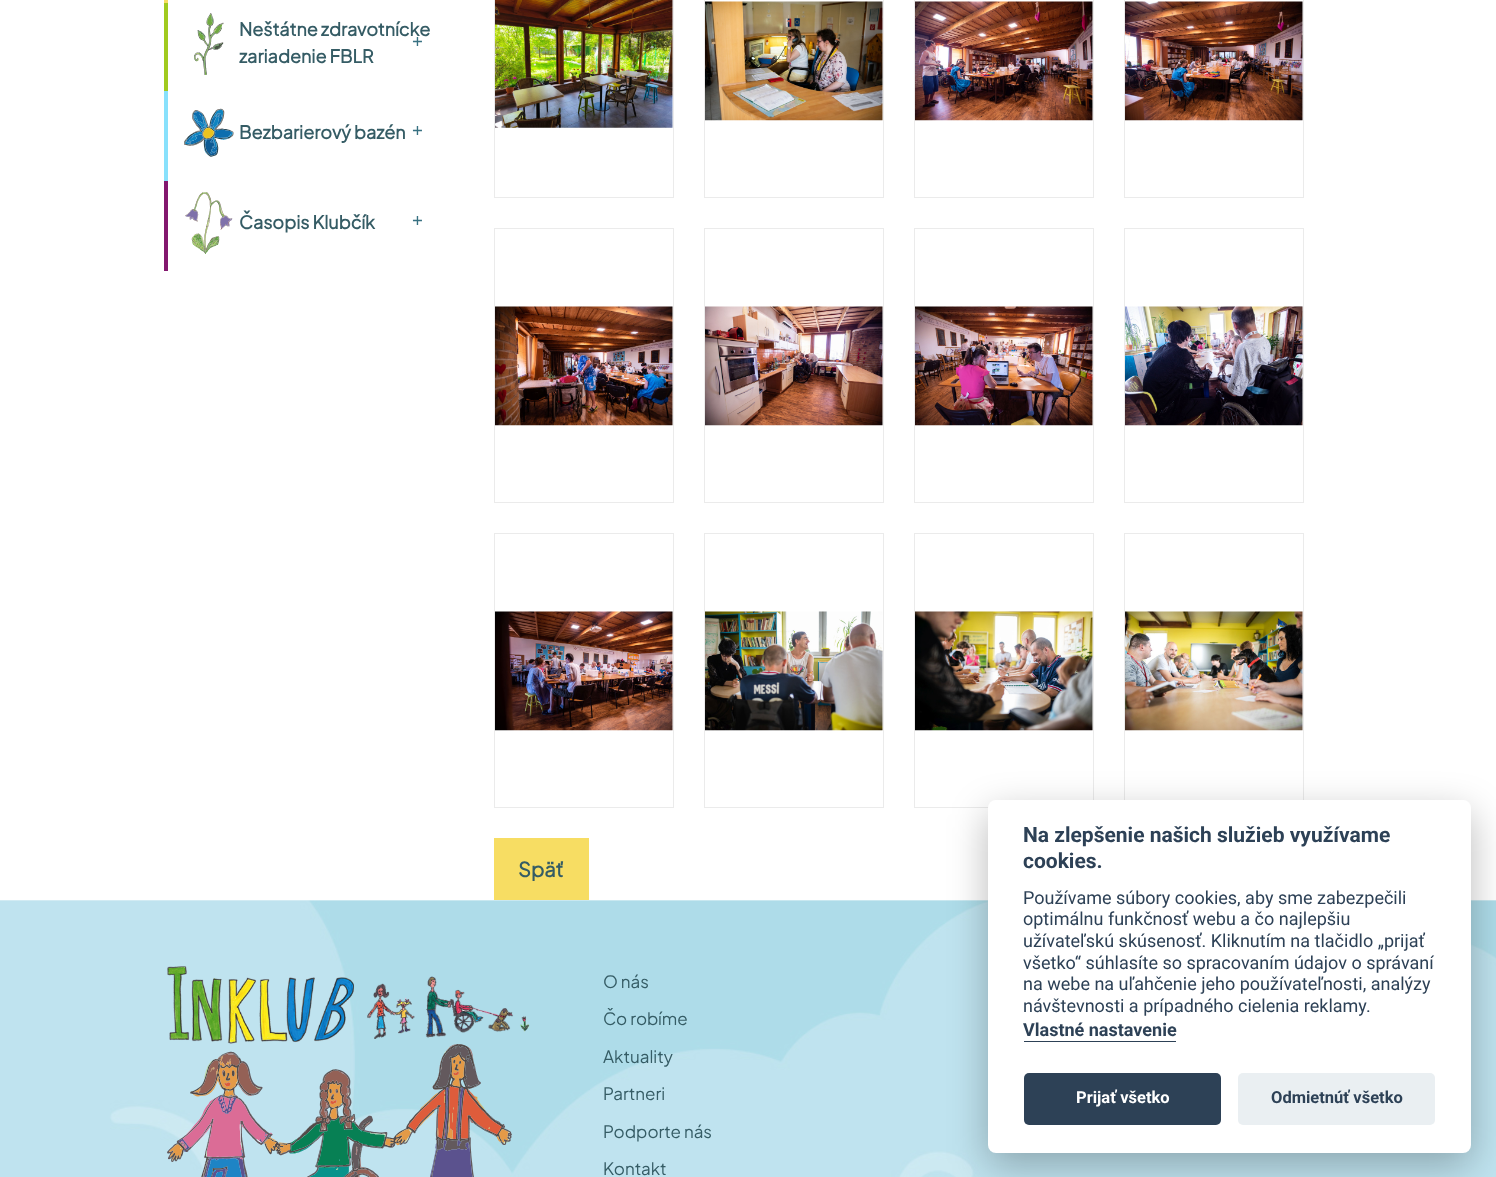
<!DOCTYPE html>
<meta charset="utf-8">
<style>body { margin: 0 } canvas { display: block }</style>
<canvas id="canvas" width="1496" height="1177"></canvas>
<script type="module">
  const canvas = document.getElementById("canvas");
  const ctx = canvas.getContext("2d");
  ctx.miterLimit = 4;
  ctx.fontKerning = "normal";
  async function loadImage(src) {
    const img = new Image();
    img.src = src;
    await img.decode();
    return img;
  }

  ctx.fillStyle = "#ffffff";
  ctx.fillRect(0, 0, 1496, 1177);
  ctx.fillStyle = "#f7dd63";
  ctx.fillRect(164, 0, 4, 3);
  ctx.fillStyle = "#a1ca20";
  ctx.fillRect(164, 3, 4, 88);
  ctx.drawImage(await loadImage("img1.png"), 194, 13, 30, 62);
  ctx.font = "bold 18px Plus Jakarta Sans";
  ctx.fillStyle = "#355c65";
  ctx.fillText("Neštátne zdravotnícke", 239, 36);
  ctx.fillText("zariadenie FBLR", 239, 63);
  ctx.font = "18px Plus Jakarta Sans";
  ctx.fillStyle = "#387182";
  ctx.fillText("+", 412, 46);
  ctx.fillStyle = "#88e1fc";
  ctx.fillRect(164, 91, 4, 90);
  ctx.drawImage(await loadImage("img2.png"), 184, 108, 50, 49);
  ctx.font = "bold 18px Plus Jakarta Sans";
  ctx.fillStyle = "#355c65";
  ctx.fillText("Bezbarierový bazén", 239, 139);
  ctx.font = "18px Plus Jakarta Sans";
  ctx.fillStyle = "#387182";
  ctx.fillText("+", 412, 135);
  ctx.fillStyle = "#83176e";
  ctx.fillRect(164, 181, 4, 90);
  ctx.drawImage(await loadImage("img3.png"), 185, 192, 48, 62);
  ctx.font = "bold 18px Plus Jakarta Sans";
  ctx.fillStyle = "#355c65";
  ctx.fillText("Časopis Klubčík", 239, 229);
  ctx.font = "18px Plus Jakarta Sans";
  ctx.fillStyle = "#387182";
  ctx.fillText("+", 412, 225);
  ctx.drawImage(await loadImage("img4.png"), 495, 0, 178, 128);
  ctx.strokeStyle = "#ebebeb";
  ctx.strokeRect(494.5, -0.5, 179, 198);
  ctx.drawImage(await loadImage("img5.png"), 705, 1, 178, 120);
  ctx.strokeRect(704.5, -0.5, 179, 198);
  ctx.drawImage(await loadImage("img6.png"), 915, 1, 178, 120);
  ctx.strokeRect(914.5, -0.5, 179, 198);
  ctx.drawImage(await loadImage("img7.png"), 1125, 1, 178, 120);
  ctx.strokeRect(1124.5, -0.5, 179, 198);
  ctx.drawImage(await loadImage("img8.png"), 495, 306, 178, 120);
  ctx.strokeRect(494.5, 228.5, 179, 274);
  ctx.drawImage(await loadImage("img9.png"), 705, 306, 178, 120);
  ctx.strokeRect(704.5, 228.5, 179, 274);
  ctx.drawImage(await loadImage("img10.png"), 915, 306, 178, 120);
  ctx.strokeRect(914.5, 228.5, 179, 274);
  ctx.drawImage(await loadImage("img11.png"), 1125, 306, 178, 120);
  ctx.strokeRect(1124.5, 228.5, 179, 274);
  ctx.drawImage(await loadImage("img12.png"), 495, 611, 178, 120);
  ctx.strokeRect(494.5, 533.5, 179, 274);
  ctx.drawImage(await loadImage("img13.png"), 705, 611, 178, 120);
  ctx.strokeRect(704.5, 533.5, 179, 274);
  ctx.drawImage(await loadImage("img14.png"), 915, 611, 178, 120);
  ctx.strokeRect(914.5, 533.5, 179, 274);
  ctx.drawImage(await loadImage("img15.png"), 1125, 611, 178, 120);
  ctx.strokeRect(1124.5, 533.5, 179, 274);
  ctx.fillStyle = "#f7dd63";
  ctx.fillRect(494, 838, 95, 62);
  ctx.font = "bold 20px Plus Jakarta Sans";
  ctx.fillStyle = "#355c65";
  ctx.fillText("Späť", 518, 877);
  ctx.drawImage(await loadImage("img16.png"), 0, 900, 1496, 277);
  ctx.drawImage(await loadImage("img17.png"), 167, 966, 363, 78);
  ctx.drawImage(await loadImage("img18.png"), 167, 1044, 345, 133);
  ctx.font = "17px Plus Jakarta Sans";
  ctx.fillText("O nás", 603, 988);
  ctx.fillText("Čo robíme", 603, 1025);
  ctx.fillText("Aktuality", 603, 1063);
  ctx.fillText("Partneri", 603, 1100);
  ctx.fillText("Podporte nás", 603, 1138);
  ctx.fillText("Kontakt", 603, 1175);
  ctx.fillStyle = "rgba(2, 2, 3, 0.28)";
  ctx.filter = "blur(19px)";
  ctx.beginPath();
  ctx.roundRect(988, 813, 483, 352, 8);
  ctx.fill();
  ctx.filter = "none";
  ctx.fillStyle = "#ffffff";
  ctx.beginPath();
  ctx.roundRect(988, 800, 483, 353, 8);
  ctx.fill();
  ctx.font = "bold 21px Roboto";
  ctx.fillStyle = "#2d4156";
  ctx.fillText("Na zlepšenie našich služieb využívame", 1023, 842);
  ctx.fillText("cookies.", 1023, 868);
  ctx.font = "18px Roboto";
  ctx.fillText("Používame súbory cookies, aby sme zabezpečili", 1023, 904);
  ctx.fillText("optimálnu funkčnosť webu a čo najlepšiu", 1023, 925);
  ctx.fillText("užívateľskú skúsenosť. Kliknutím na tlačidlo „prijať", 1023, 947);
  ctx.fillText("všetko“ súhlasíte so spracovaním údajov o správaní", 1023, 969);
  ctx.fillText("na webe na uľahčenie jeho používateľnosti, analýzy", 1023, 990);
  ctx.fillText("návštevnosti a prípadného cielenia reklamy.", 1023, 1012);
  ctx.font = "bold 18px Roboto";
  ctx.fillText("Vlastné nastavenie", 1023, 1036);
  ctx.fillRect(1024, 1041, 152, 1);
  ctx.beginPath();
  ctx.roundRect(1024, 1073, 197, 52, 5);
  ctx.fill();
  ctx.font = "bold 16.5px Roboto";
  ctx.fillStyle = "#ffffff";
  ctx.fillText("Prijať všetko", 1076, 1103);
  ctx.fillStyle = "#eaeff2";
  ctx.beginPath();
  ctx.roundRect(1238, 1073, 197, 52, 5);
  ctx.fill();
  ctx.fillStyle = "#2d4156";
  ctx.fillText("Odmietnúť všetko", 1271, 1103);
</script>
